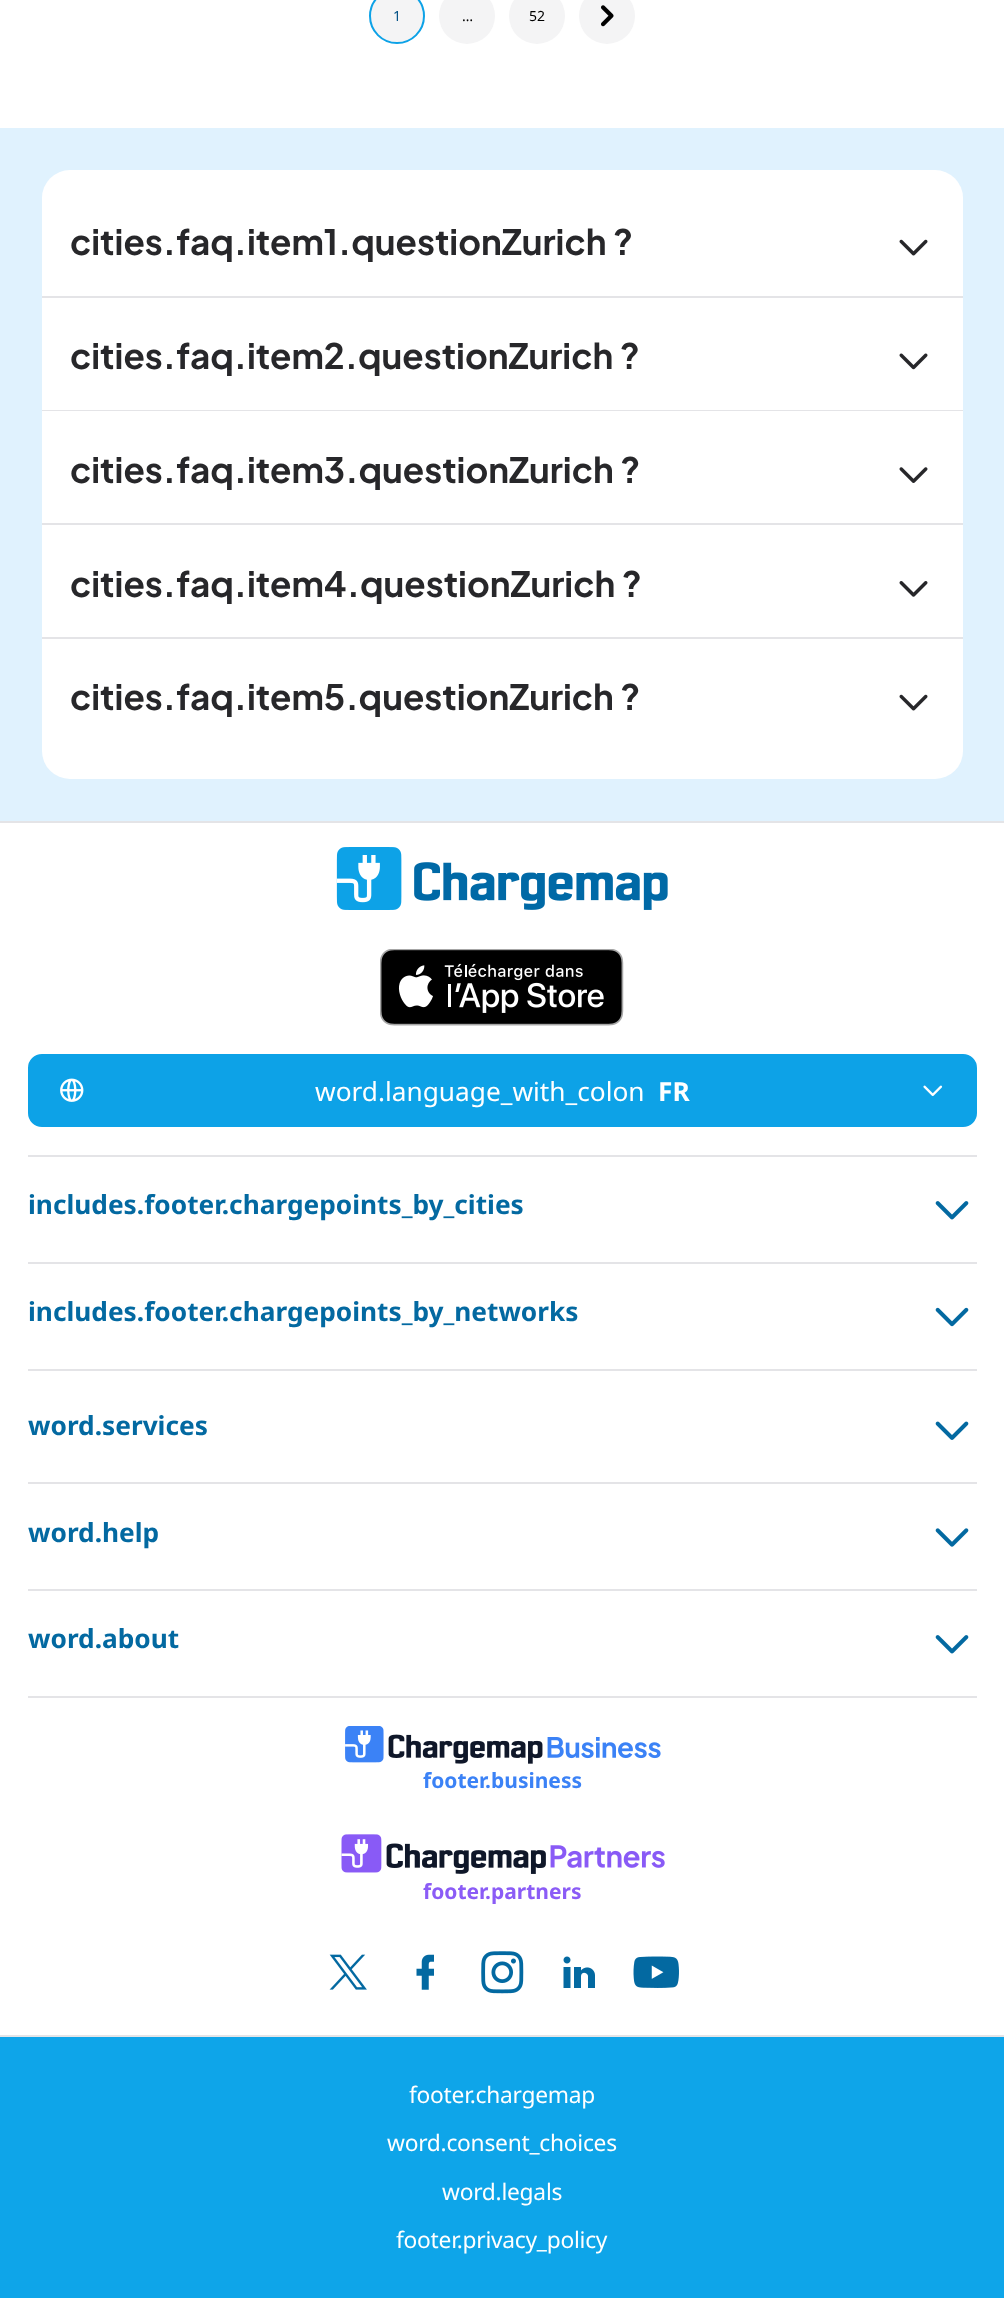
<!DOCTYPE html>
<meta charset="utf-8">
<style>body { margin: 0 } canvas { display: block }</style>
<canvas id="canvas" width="1004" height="2298"></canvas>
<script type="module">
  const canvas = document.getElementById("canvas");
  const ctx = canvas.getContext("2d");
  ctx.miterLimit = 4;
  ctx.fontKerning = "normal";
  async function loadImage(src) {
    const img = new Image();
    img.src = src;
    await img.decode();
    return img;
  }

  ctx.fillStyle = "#ffffff";
  ctx.fillRect(0, 0, 1004, 2298);
  ctx.fillStyle = "#f4f4f5";
  ctx.beginPath();
  ctx.arc(397, 16, 27, 0, Math.PI * 2);
  ctx.fill();
  ctx.strokeStyle = "#0da2e7";
  ctx.lineWidth = 2;
  ctx.stroke();
  ctx.font = "14px Noto Sans";
  ctx.fillStyle = "#005085";
  ctx.fillText("1", 393, 21);
  ctx.fillStyle = "#f4f4f5";
  ctx.beginPath();
  ctx.arc(467, 16, 28, 0, Math.PI * 2);
  ctx.fill();
  ctx.fillStyle = "#000000";
  ctx.fillText("…", 462, 21);
  ctx.fillStyle = "#f4f4f5";
  ctx.beginPath();
  ctx.arc(537, 16, 28, 0, Math.PI * 2);
  ctx.fill();
  ctx.fillStyle = "#000000";
  ctx.fillText("52", 529, 21);
  ctx.fillStyle = "#f4f4f5";
  ctx.beginPath();
  ctx.arc(607, 16, 28, 0, Math.PI * 2);
  ctx.fill();
  ctx.drawImage(await loadImage("img1.png"), 601, 5, 13, 22);
  ctx.fillStyle = "#e0f2fe";
  ctx.fillRect(0, 128, 1004, 693);
  ctx.fillStyle = "#ffffff";
  ctx.beginPath();
  ctx.roundRect(42, 170, 921, 126, [28, 28, 0, 0]);
  ctx.fill();
  ctx.fillStyle = "#e4e4e7";
  ctx.fillRect(42, 296, 921, 2);
  ctx.font = "bold 35px Plus Jakarta Sans";
  ctx.fillStyle = "#27272a";
  ctx.fillText("cities.faq.item1.questionZurich ?", 70, 255);
  ctx.drawImage(await loadImage("img2.png"), 899, 239, 29, 17);
  ctx.fillStyle = "#ffffff";
  ctx.fillRect(42, 298, 921, 112);
  ctx.fillStyle = "#e4e4e7";
  ctx.fillRect(42, 410, 921, 1);
  ctx.fillStyle = "#27272a";
  ctx.fillText("cities.faq.item2.questionZurich ?", 70, 369);
  ctx.drawImage(await loadImage("img3.png"), 899, 353, 29, 17);
  ctx.fillStyle = "#ffffff";
  ctx.fillRect(42, 411, 921, 112);
  ctx.fillStyle = "#e4e4e7";
  ctx.fillRect(42, 523, 921, 2);
  ctx.fillStyle = "#27272a";
  ctx.fillText("cities.faq.item3.questionZurich ?", 70, 483);
  ctx.drawImage(await loadImage("img4.png"), 899, 467, 29, 16);
  ctx.fillStyle = "#ffffff";
  ctx.fillRect(42, 525, 921, 112);
  ctx.fillStyle = "#e4e4e7";
  ctx.fillRect(42, 637, 921, 2);
  ctx.fillStyle = "#27272a";
  ctx.fillText("cities.faq.item4.questionZurich ?", 70, 597);
  ctx.drawImage(await loadImage("img5.png"), 899, 581, 29, 16);
  ctx.fillStyle = "#ffffff";
  ctx.beginPath();
  ctx.roundRect(42, 639, 921, 140, [0, 0, 28, 28]);
  ctx.fill();
  ctx.fillStyle = "#27272a";
  ctx.fillText("cities.faq.item5.questionZurich ?", 70, 710);
  ctx.drawImage(await loadImage("img2.png"), 899, 694, 29, 17);
  ctx.fillStyle = "#e4e4e7";
  ctx.fillRect(0, 821, 1004, 2);
  ctx.drawImage(await loadImage("img6.png"), 336, 847, 332, 63);
  ctx.drawImage(await loadImage("img7.png"), 380, 949, 244, 77);
  ctx.fillRect(28, 1155, 949, 2);
  ctx.fillStyle = "#0da2e7";
  ctx.beginPath();
  ctx.roundRect(29, 1055, 947, 71, 13);
  ctx.fill();
  ctx.stroke();
  ctx.drawImage(await loadImage("img8.png"), 60, 1078, 24, 24);
  ctx.font = "26.25px Noto Sans";
  ctx.fillStyle = "#ffffff";
  ctx.fillText("word.language_with_colon", 315, 1101);
  ctx.font = "bold 26.25px Noto Sans";
  ctx.fillText("FR", 658, 1101);
  ctx.drawImage(await loadImage("img9.png"), 923, 1085, 20, 12);
  ctx.fillStyle = "#0369a1";
  ctx.fillText("includes.footer.chargepoints_by_cities", 28, 1214);
  ctx.drawImage(await loadImage("img10.png"), 935, 1201, 34, 19);
  ctx.fillStyle = "#e4e4e7";
  ctx.fillRect(28, 1262, 949, 2);
  ctx.fillStyle = "#0369a1";
  ctx.fillText("includes.footer.chargepoints_by_networks", 28, 1321);
  ctx.drawImage(await loadImage("img11.png"), 935, 1307, 34, 20);
  ctx.fillStyle = "#e4e4e7";
  ctx.fillRect(28, 1369, 949, 2);
  ctx.fillStyle = "#0369a1";
  ctx.fillText("word.services", 28, 1435);
  ctx.drawImage(await loadImage("img12.png"), 935, 1421, 34, 19);
  ctx.fillStyle = "#e4e4e7";
  ctx.fillRect(28, 1482, 949, 2);
  ctx.fillStyle = "#0369a1";
  ctx.fillText("word.help", 28, 1542);
  ctx.drawImage(await loadImage("img13.png"), 935, 1528, 34, 19);
  ctx.fillStyle = "#e4e4e7";
  ctx.fillRect(28, 1589, 949, 2);
  ctx.fillStyle = "#0369a1";
  ctx.fillText("word.about", 28, 1648);
  ctx.drawImage(await loadImage("img10.png"), 935, 1635, 34, 19);
  ctx.fillStyle = "#e4e4e7";
  ctx.fillRect(28, 1696, 949, 2);
  ctx.drawImage(await loadImage("img14.png"), 345, 1726, 316, 38);
  ctx.font = "bold 21px Noto Sans";
  ctx.fillStyle = "#3b82f6";
  ctx.fillText("footer.business", 423, 1788);
  ctx.drawImage(await loadImage("img15.png"), 341, 1834, 324, 40);
  ctx.fillStyle = "#8b5cf6";
  ctx.fillText("footer.partners", 423, 1899);
  ctx.drawImage(await loadImage("img16.png"), 329, 1954, 38, 36);
  ctx.drawImage(await loadImage("img17.png"), 416, 1954, 18, 36);
  ctx.drawImage(await loadImage("img18.png"), 481, 1951, 43, 43);
  ctx.drawImage(await loadImage("img19.png"), 563, 1956, 32, 32);
  ctx.drawImage(await loadImage("img20.png"), 633, 1956, 46, 32);
  ctx.fillStyle = "#0ea5e9";
  ctx.fillRect(0, 2037, 1004, 261);
  ctx.fillStyle = "#e4e4e7";
  ctx.fillRect(0, 2035, 1004, 2);
  ctx.letterSpacing = "-0.25px";
  ctx.font = "22.75px Noto Sans";
  ctx.fillStyle = "#ffffff";
  ctx.fillText("footer.chargemap", 409, 2103);
  ctx.fillText("word.consent_choices", 387, 2151);
  ctx.fillText("word.legals", 442, 2200);
  ctx.fillText("footer.privacy_policy", 396, 2248);
</script>
